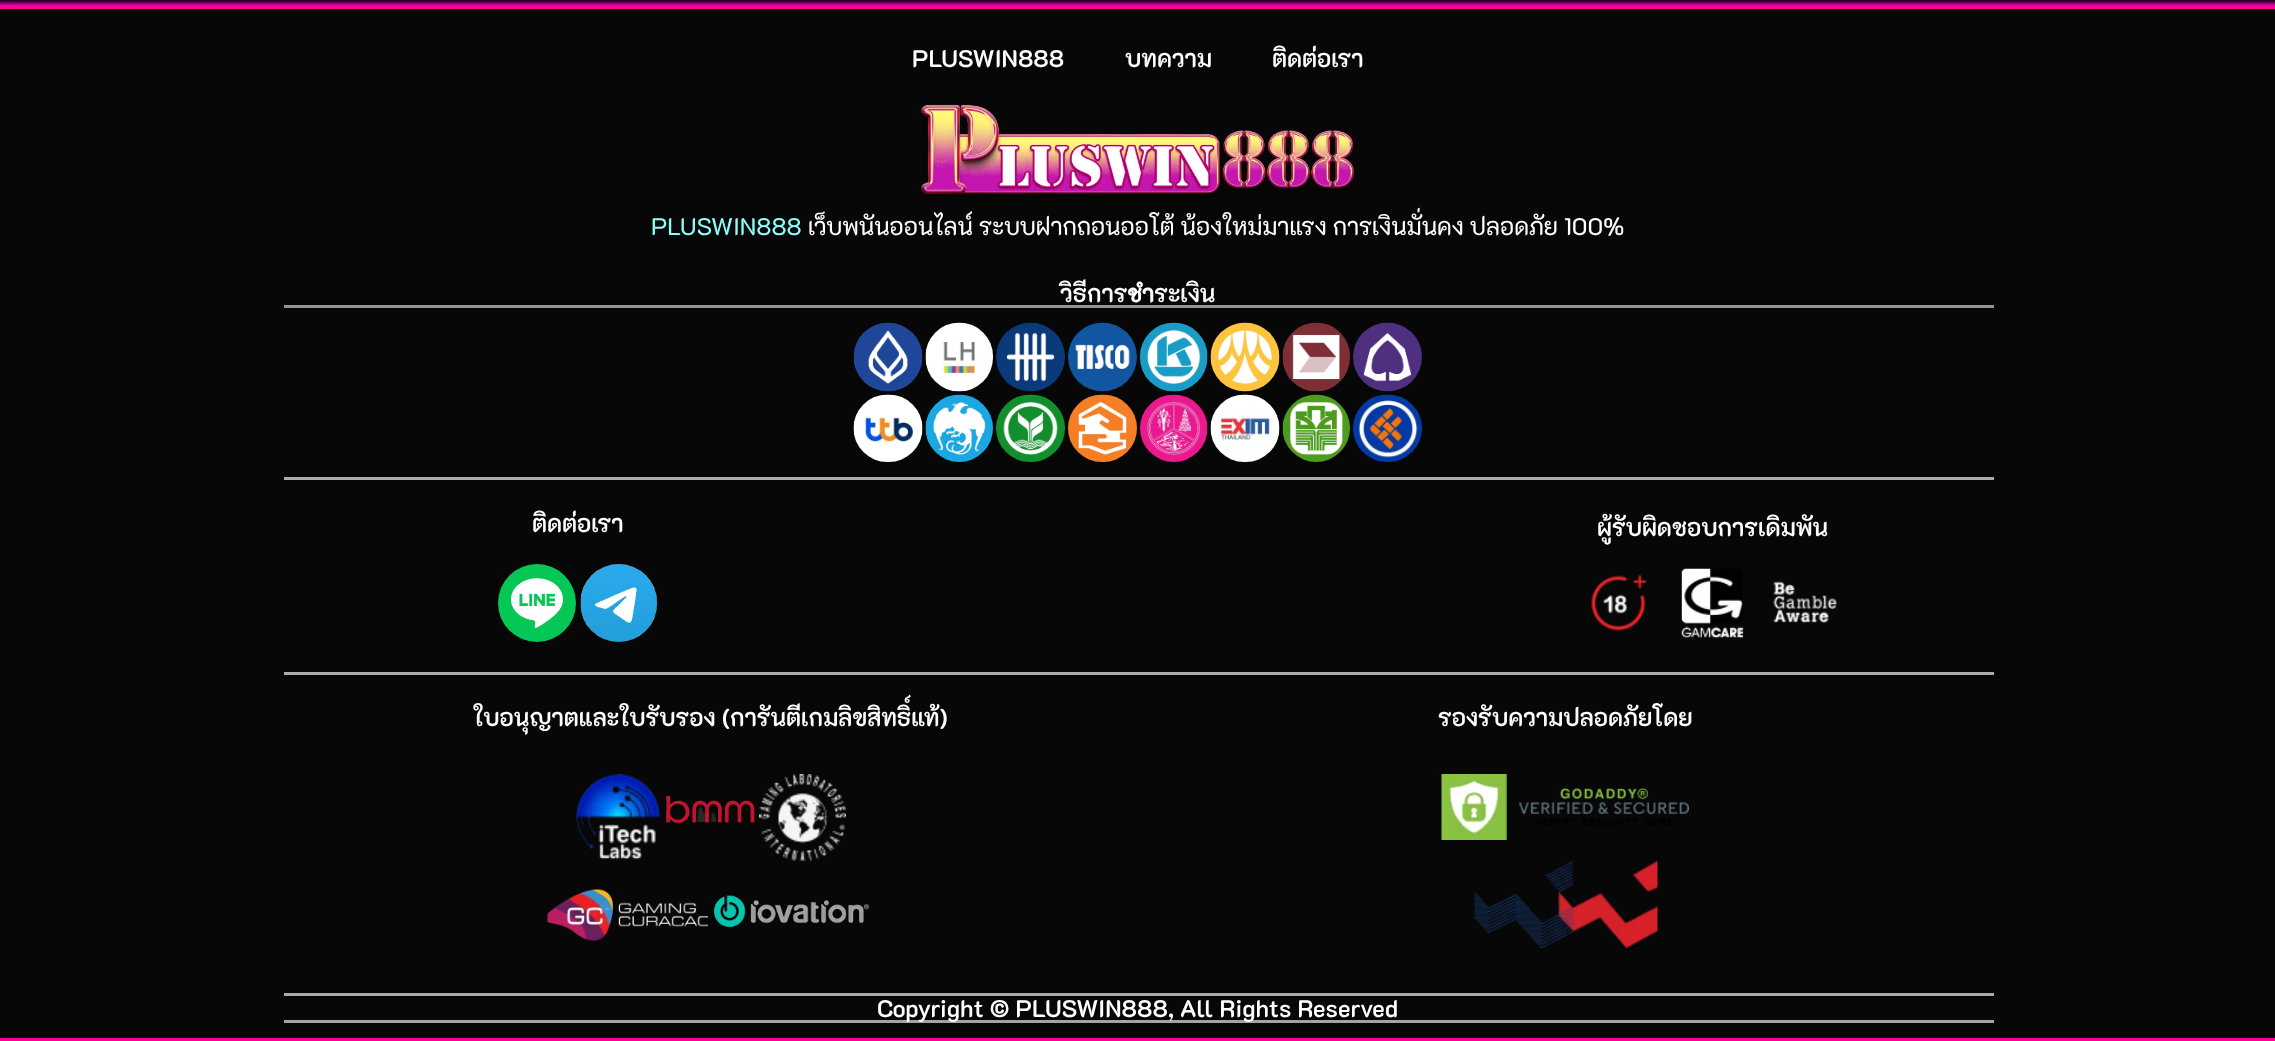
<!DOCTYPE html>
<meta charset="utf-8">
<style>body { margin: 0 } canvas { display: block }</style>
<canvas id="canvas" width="2275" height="1041"></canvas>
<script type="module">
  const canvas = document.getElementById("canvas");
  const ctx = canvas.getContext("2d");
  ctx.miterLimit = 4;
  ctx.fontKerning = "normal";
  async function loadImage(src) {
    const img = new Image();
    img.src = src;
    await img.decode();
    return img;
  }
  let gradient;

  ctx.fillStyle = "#ffffff";
  ctx.fillRect(0, 0, 2275, 1041);
  gradient = ctx.createLinearGradient(1138, -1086, 1138, 1041);
  gradient.addColorStop(0.5, "#000000");
  gradient.addColorStop(1, "#ff006e");
  ctx.fillStyle = gradient;
  ctx.fillRect(0, 0, 2275, 6);
  ctx.fillStyle = "#ff02cb";
  ctx.filter = "blur(2px)";
  ctx.beginPath();
  ctx.rect(-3, 3, 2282, 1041);
  ctx.fill();
  ctx.filter = "none";
  ctx.fillStyle = "#070707";
  ctx.fillRect(0, 9, 2275, 1029);
  ctx.fillStyle = "#ff0096";
  ctx.fillRect(0, 6, 2275, 3);
  ctx.fillRect(0, 1038, 2275, 3);
  ctx.font = "600 24px 'K2D'";
  ctx.fillStyle = "#ffffff";
  ctx.fillText("PLUSWIN888", 912, 67);
  ctx.fillText("บทความ", 1125, 67);
  ctx.fillText("ติดต่อเรา", 1272, 67);
  ctx.drawImage(await loadImage("img1.png"), 921, 104, 433, 93);
  ctx.font = "24px 'K2D'";
  ctx.fillStyle = "#8cfffb";
  ctx.fillText("PLUSWIN888", 651, 235);
  ctx.fillStyle = "#ffffff";
  ctx.fillText("เว็บพนันออนไลน์ ระบบฝากถอนออโต้ น้องใหม่มาแรง การเงินมั่นคง ปลอดภัย 100%", 808, 235);
  ctx.fillStyle = "#959494";
  ctx.fillRect(284, 305, 1710, 3);
  ctx.font = "600 24px 'K2D'";
  ctx.fillStyle = "#ffffff";
  ctx.fillText("วิธีการชำระเงิน", 1060, 302);
  ctx.drawImage(await loadImage("img2.png"), 853, 322, 70, 70);
  ctx.drawImage(await loadImage("img3.png"), 925, 322, 68, 70);
  ctx.drawImage(await loadImage("img4.png"), 996, 322, 69, 70);
  ctx.drawImage(await loadImage("img5.png"), 1068, 322, 69, 70);
  ctx.drawImage(await loadImage("img6.png"), 1140, 322, 68, 70);
  ctx.drawImage(await loadImage("img7.png"), 1210, 322, 70, 70);
  ctx.drawImage(await loadImage("img8.png"), 1282, 322, 68, 70);
  ctx.drawImage(await loadImage("img9.png"), 1353, 322, 69, 70);
  ctx.drawImage(await loadImage("img10.png"), 853, 394, 70, 68);
  ctx.drawImage(await loadImage("img11.png"), 925, 394, 68, 68);
  ctx.drawImage(await loadImage("img12.png"), 996, 394, 69, 68);
  ctx.drawImage(await loadImage("img13.png"), 1068, 394, 69, 68);
  ctx.drawImage(await loadImage("img14.png"), 1140, 394, 68, 68);
  ctx.drawImage(await loadImage("img15.png"), 1210, 394, 70, 68);
  ctx.drawImage(await loadImage("img16.png"), 1282, 394, 68, 68);
  ctx.drawImage(await loadImage("img17.png"), 1353, 394, 69, 68);
  ctx.fillStyle = "#ababab";
  ctx.fillRect(284, 477, 1710, 3);
  ctx.fillRect(284, 672, 1710, 3);
  ctx.fillStyle = "#ffffff";
  ctx.fillText("ติดต่อเรา", 532, 532);
  ctx.drawImage(await loadImage("img18.png"), 498, 564, 78, 78);
  ctx.drawImage(await loadImage("img19.png"), 580, 564, 77, 78);
  ctx.fillText("ผู้รับผิดชอบการเดิมพัน", 1597, 536);
  ctx.drawImage(await loadImage("img20.png"), 1591, 568, 246, 70);
  ctx.fillStyle = "#aaaaaa";
  ctx.fillRect(284, 993, 1710, 3);
  ctx.fillStyle = "#ffffff";
  ctx.fillText("ใบอนุญาตและใบรับรอง (การันตีเกมลิขสิทธิ์แท้)", 473, 726);
  ctx.drawImage(await loadImage("img21.png"), 575, 774, 86, 86);
  ctx.drawImage(await loadImage("img22.png"), 666, 795, 89, 29);
  ctx.drawImage(await loadImage("img23.png"), 759, 774, 87, 87);
  ctx.drawImage(await loadImage("img24.png"), 547, 889, 161, 52);
  ctx.drawImage(await loadImage("img25.png"), 714, 895, 156, 32);
  ctx.fillText("รองรับความปลอดภัยโดย", 1438, 726);
  ctx.drawImage(await loadImage("img26.png"), 1441, 774, 248, 66);
  ctx.drawImage(await loadImage("img27.png"), 1474, 861, 184, 87);
  ctx.fillStyle = "#a4a4a4";
  ctx.fillRect(284, 1020, 1710, 3);
  ctx.fillStyle = "#ffffff";
  ctx.fillText("Copyright © PLUSWIN888, All Rights Reserved", 877, 1017);
</script>
